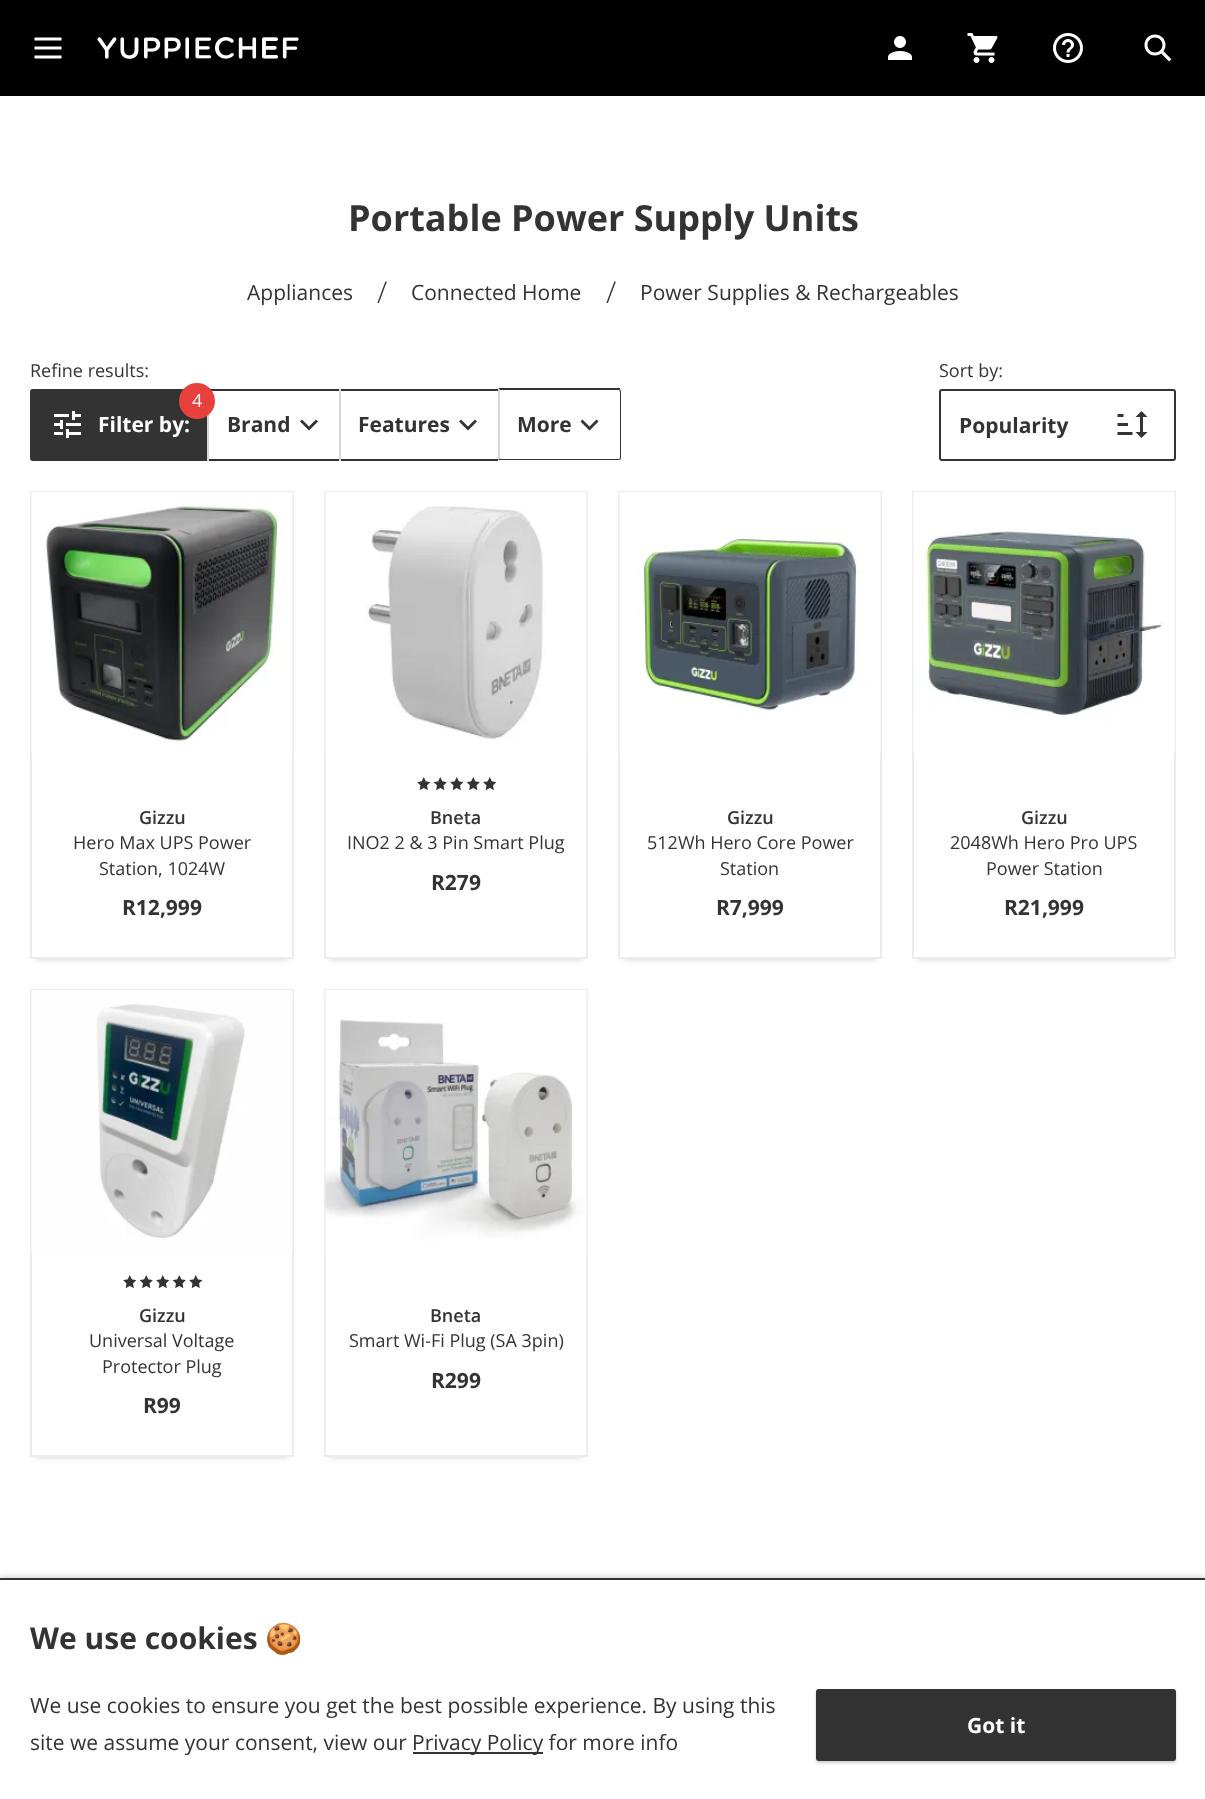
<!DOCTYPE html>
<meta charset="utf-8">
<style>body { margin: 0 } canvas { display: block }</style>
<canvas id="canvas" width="1205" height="1799"></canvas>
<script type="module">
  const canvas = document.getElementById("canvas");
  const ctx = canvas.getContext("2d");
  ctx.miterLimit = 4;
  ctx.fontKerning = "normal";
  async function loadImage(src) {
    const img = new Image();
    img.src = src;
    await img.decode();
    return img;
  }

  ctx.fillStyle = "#ffffff";
  ctx.fillRect(0, 0, 1205, 1799);
  ctx.fillStyle = "#000000";
  ctx.fillRect(0, 0, 1205, 96);
  ctx.drawImage(await loadImage("img1.png"), 34, 37, 28, 22);
  ctx.drawImage(await loadImage("img2.png"), 97, 37, 202, 22);
  ctx.drawImage(await loadImage("img3.png"), 888, 36, 24, 24);
  ctx.drawImage(await loadImage("img4.png"), 967, 33, 31, 30);
  ctx.drawImage(await loadImage("img5.png"), 1053, 33, 30, 30);
  ctx.drawImage(await loadImage("img6.png"), 1144, 34, 28, 28);
  ctx.font = "bold 36px Open Sans";
  ctx.fillStyle = "#333333";
  ctx.fillText("Portable Power Supply Units", 348, 231);
  ctx.font = "21px Open Sans";
  ctx.fillText("Appliances", 247, 300);
  ctx.font = "300 30px Open Sans";
  ctx.fillText("/", 377, 303);
  ctx.font = "21px Open Sans";
  ctx.fillText("Connected Home", 411, 300);
  ctx.font = "300 30px Open Sans";
  ctx.fillText("/", 606, 303);
  ctx.font = "21px Open Sans";
  ctx.fillText("Power Supplies & Rechargeables", 640, 300);
  ctx.font = "18px Open Sans";
  ctx.fillText("Refine results:", 30, 377);
  ctx.beginPath();
  ctx.roundRect(31, 390, 177, 70, [2, 0, 0, 2]);
  ctx.fill();
  ctx.strokeStyle = "#333333";
  ctx.lineWidth = 2;
  ctx.stroke();
  ctx.font = "bold 21px Open Sans";
  ctx.fillStyle = "#ffffff";
  ctx.fillText("Filter by:", 98, 432);
  ctx.fillStyle = "#333333";
  ctx.fillRect(207, 389, 293, 2);
  ctx.fillRect(207, 459, 293, 2);
  ctx.fillStyle = "#d6d6d6";
  ctx.fillRect(207, 414, 2, 47);
  ctx.fillStyle = "#e8413d";
  ctx.beginPath();
  ctx.arc(197, 401, 18, 0, Math.PI * 2);
  ctx.fill();
  ctx.font = "18px Open Sans";
  ctx.fillStyle = "#ffffff";
  ctx.fillText("4", 192, 407);
  ctx.drawImage(await loadImage("img7.png"), 54, 411, 27, 27);
  ctx.font = "bold 21px Open Sans";
  ctx.fillStyle = "#333333";
  ctx.fillText("Brand", 227, 432);
  ctx.beginPath();
  ctx.moveTo(302, 419.5);
  ctx.lineTo(309, 426.5);
  ctx.lineTo(316, 419.5);
  ctx.lineTo(318, 421.5);
  ctx.lineTo(309, 430.5);
  ctx.lineTo(300, 421.5);
  ctx.closePath();
  ctx.fill();
  ctx.fillStyle = "#d6d6d6";
  ctx.fillRect(339, 389, 2, 72);
  ctx.fillStyle = "#333333";
  ctx.fillText("Features", 358, 432);
  ctx.beginPath();
  ctx.moveTo(461, 419.5);
  ctx.lineTo(468, 426.5);
  ctx.lineTo(475, 419.5);
  ctx.lineTo(477, 421.5);
  ctx.lineTo(468, 430.5);
  ctx.lineTo(459, 421.5);
  ctx.closePath();
  ctx.fill();
  ctx.fillStyle = "#ffffff";
  ctx.beginPath();
  ctx.roundRect(498, 389, 123, 72, [0, 3, 3, 0]);
  ctx.fill();
  ctx.fillStyle = "#333333";
  ctx.beginPath();
  ctx.moveTo(500, 390);
  ctx.lineTo(498, 388);
  ctx.lineTo(620, 388);
  ctx.lineTo(620, 389);
  ctx.lineTo(619, 390);
  ctx.lineTo(618, 390);
  ctx.closePath();
  ctx.fill();
  ctx.beginPath();
  ctx.moveTo(621, 458);
  ctx.lineTo(621, 392);
  ctx.lineTo(620, 389);
  ctx.lineTo(619, 390);
  ctx.lineTo(620, 392);
  ctx.lineTo(620, 458);
  ctx.lineTo(619, 459);
  ctx.lineTo(620, 460);
  ctx.closePath();
  ctx.fill();
  ctx.beginPath();
  ctx.moveTo(620, 460);
  ctx.lineTo(618, 460);
  ctx.lineTo(498, 460);
  ctx.lineTo(500, 458);
  ctx.lineTo(500, 459);
  ctx.lineTo(619, 459);
  ctx.closePath();
  ctx.fill();
  ctx.fillStyle = "#d6d6d6";
  ctx.beginPath();
  ctx.moveTo(498, 388);
  ctx.lineTo(498, 460);
  ctx.lineTo(500, 458);
  ctx.lineTo(500, 390);
  ctx.closePath();
  ctx.fill();
  ctx.fillStyle = "#333333";
  ctx.fillText("More", 517, 432);
  ctx.beginPath();
  ctx.moveTo(582.5, 419.5);
  ctx.lineTo(589.5, 426.5);
  ctx.lineTo(596.5, 419.5);
  ctx.lineTo(598.5, 421.5);
  ctx.lineTo(589.5, 430.5);
  ctx.lineTo(580.5, 421.5);
  ctx.closePath();
  ctx.fill();
  ctx.font = "18px Open Sans";
  ctx.fillText("Sort by:", 939, 377);
  ctx.drawImage(await loadImage("img8.png"), 1117, 411, 31, 27);
  ctx.beginPath();
  ctx.roundRect(940, 390, 235, 70, 2);
  ctx.stroke();
  ctx.font = "bold 21px Open Sans";
  ctx.fillText("Popularity", 959, 433);
  ctx.fillStyle = "rgba(0, 0, 0, 0.2)";
  ctx.filter = "blur(3px)";
  ctx.beginPath();
  ctx.rect(36, 503, 252, 456);
  ctx.fill();
  ctx.filter = "none";
  ctx.fillStyle = "#ffffff";
  ctx.fillRect(32, 753, 260, 204);
  ctx.strokeStyle = "#ececec";
  ctx.strokeRect(31, 492, 262, 466);
  ctx.drawImage(await loadImage("img9.png"), 31, 492, 262, 261);
  ctx.font = "600 18px Open Sans";
  ctx.fillStyle = "#333333";
  ctx.fillText("Gizzu", 139, 824);
  ctx.font = "18px Open Sans";
  ctx.fillText("Hero Max UPS Power", 73, 849);
  ctx.fillText("Station, 1024W", 99, 875);
  ctx.font = "bold 21px Open Sans";
  ctx.fillText("R12,999", 122, 915);
  ctx.fillStyle = "rgba(0, 0, 0, 0.2)";
  ctx.filter = "blur(3px)";
  ctx.beginPath();
  ctx.rect(330, 503, 252, 456);
  ctx.fill();
  ctx.filter = "none";
  ctx.fillStyle = "#ffffff";
  ctx.fillRect(326, 753, 260, 204);
  ctx.strokeRect(325, 492, 262, 466);
  ctx.drawImage(await loadImage("img10.png"), 325, 492, 262, 261);
  ctx.drawImage(await loadImage("img11.png"), 417, 777, 80, 14);
  ctx.font = "600 18px Open Sans";
  ctx.fillStyle = "#333333";
  ctx.fillText("Bneta", 430, 824);
  ctx.font = "18px Open Sans";
  ctx.fillText("INO2 2 & 3 Pin Smart Plug", 347, 849);
  ctx.font = "bold 21px Open Sans";
  ctx.fillText("R279", 431, 890);
  ctx.fillStyle = "rgba(0, 0, 0, 0.2)";
  ctx.filter = "blur(3px)";
  ctx.beginPath();
  ctx.rect(624, 503, 252, 456);
  ctx.fill();
  ctx.filter = "none";
  ctx.fillStyle = "#ffffff";
  ctx.fillRect(620, 753, 260, 204);
  ctx.strokeRect(619, 492, 262, 466);
  ctx.drawImage(await loadImage("img12.png"), 619, 492, 262, 261);
  ctx.font = "600 18px Open Sans";
  ctx.fillStyle = "#333333";
  ctx.fillText("Gizzu", 727, 824);
  ctx.font = "18px Open Sans";
  ctx.fillText("512Wh Hero Core Power", 647, 849);
  ctx.fillText("Station", 720, 875);
  ctx.font = "bold 21px Open Sans";
  ctx.fillText("R7,999", 716, 915);
  ctx.fillStyle = "rgba(0, 0, 0, 0.2)";
  ctx.filter = "blur(3px)";
  ctx.beginPath();
  ctx.rect(918, 503, 252, 456);
  ctx.fill();
  ctx.filter = "none";
  ctx.fillStyle = "#ffffff";
  ctx.fillRect(914, 753, 260, 204);
  ctx.strokeRect(913, 492, 262, 466);
  ctx.drawImage(await loadImage("img13.png"), 913, 492, 262, 261);
  ctx.font = "600 18px Open Sans";
  ctx.fillStyle = "#333333";
  ctx.fillText("Gizzu", 1021, 824);
  ctx.font = "18px Open Sans";
  ctx.fillText("2048Wh Hero Pro UPS", 950, 849);
  ctx.fillText("Power Station", 986, 875);
  ctx.font = "bold 21px Open Sans";
  ctx.fillText("R21,999", 1004, 915);
  ctx.fillStyle = "rgba(0, 0, 0, 0.2)";
  ctx.filter = "blur(3px)";
  ctx.beginPath();
  ctx.rect(36, 1001, 252, 456);
  ctx.fill();
  ctx.filter = "none";
  ctx.fillStyle = "#ffffff";
  ctx.fillRect(32, 1251, 260, 204);
  ctx.strokeRect(31, 990, 262, 466);
  ctx.drawImage(await loadImage("img14.png"), 31, 990, 262, 261);
  ctx.drawImage(await loadImage("img11.png"), 123, 1275, 80, 14);
  ctx.font = "600 18px Open Sans";
  ctx.fillStyle = "#333333";
  ctx.fillText("Gizzu", 139, 1322);
  ctx.font = "18px Open Sans";
  ctx.fillText("Universal Voltage", 89, 1347);
  ctx.fillText("Protector Plug", 102, 1373);
  ctx.font = "bold 21px Open Sans";
  ctx.fillText("R99", 143, 1413);
  ctx.fillStyle = "rgba(0, 0, 0, 0.2)";
  ctx.filter = "blur(3px)";
  ctx.beginPath();
  ctx.rect(330, 1001, 252, 456);
  ctx.fill();
  ctx.filter = "none";
  ctx.fillStyle = "#ffffff";
  ctx.fillRect(326, 1251, 260, 204);
  ctx.strokeRect(325, 990, 262, 466);
  ctx.drawImage(await loadImage("img15.png"), 325, 990, 262, 261);
  ctx.font = "600 18px Open Sans";
  ctx.fillStyle = "#333333";
  ctx.fillText("Bneta", 430, 1322);
  ctx.font = "18px Open Sans";
  ctx.fillText("Smart Wi-Fi Plug (SA 3pin)", 349, 1347);
  ctx.font = "bold 21px Open Sans";
  ctx.fillText("R299", 431, 1388);
  ctx.fillStyle = "rgba(0, 0, 0, 0.2)";
  ctx.filter = "blur(3px)";
  ctx.beginPath();
  ctx.rect(0, 1577, 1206, 222);
  ctx.fill();
  ctx.filter = "none";
  ctx.fillStyle = "#ffffff";
  ctx.fillRect(0, 1580, 1205, 219);
  ctx.fillStyle = "#333333";
  ctx.fillRect(0, 1578, 1205, 2);
  ctx.font = "bold 30px Open Sans";
  ctx.fillText("We use cookies", 30, 1649);
  ctx.font = "bold 30px Noto Color Emoji";
  ctx.fillText("🍪", 265, 1649);
  ctx.font = "21px Open Sans";
  ctx.fillText("We use cookies to ensure you get the best possible experience. By using this", 30, 1713);
  ctx.fillText("site we assume your consent, view our", 30, 1750);
  ctx.fillRect(413, 1752, 130, 2);
  ctx.fillText("Privacy Policy for more info", 412, 1750);
  ctx.fillStyle = "rgba(0, 0, 0, 0.2)";
  ctx.filter = "blur(1.5px)";
  ctx.beginPath();
  ctx.roundRect(816, 1691, 360, 72, 3);
  ctx.fill();
  ctx.filter = "none";
  ctx.fillStyle = "#333333";
  ctx.beginPath();
  ctx.roundRect(816, 1689, 360, 72, 3);
  ctx.fill();
  ctx.font = "bold 21px Open Sans";
  ctx.fillStyle = "#ffffff";
  ctx.fillText("Got it", 967, 1733);
</script>
